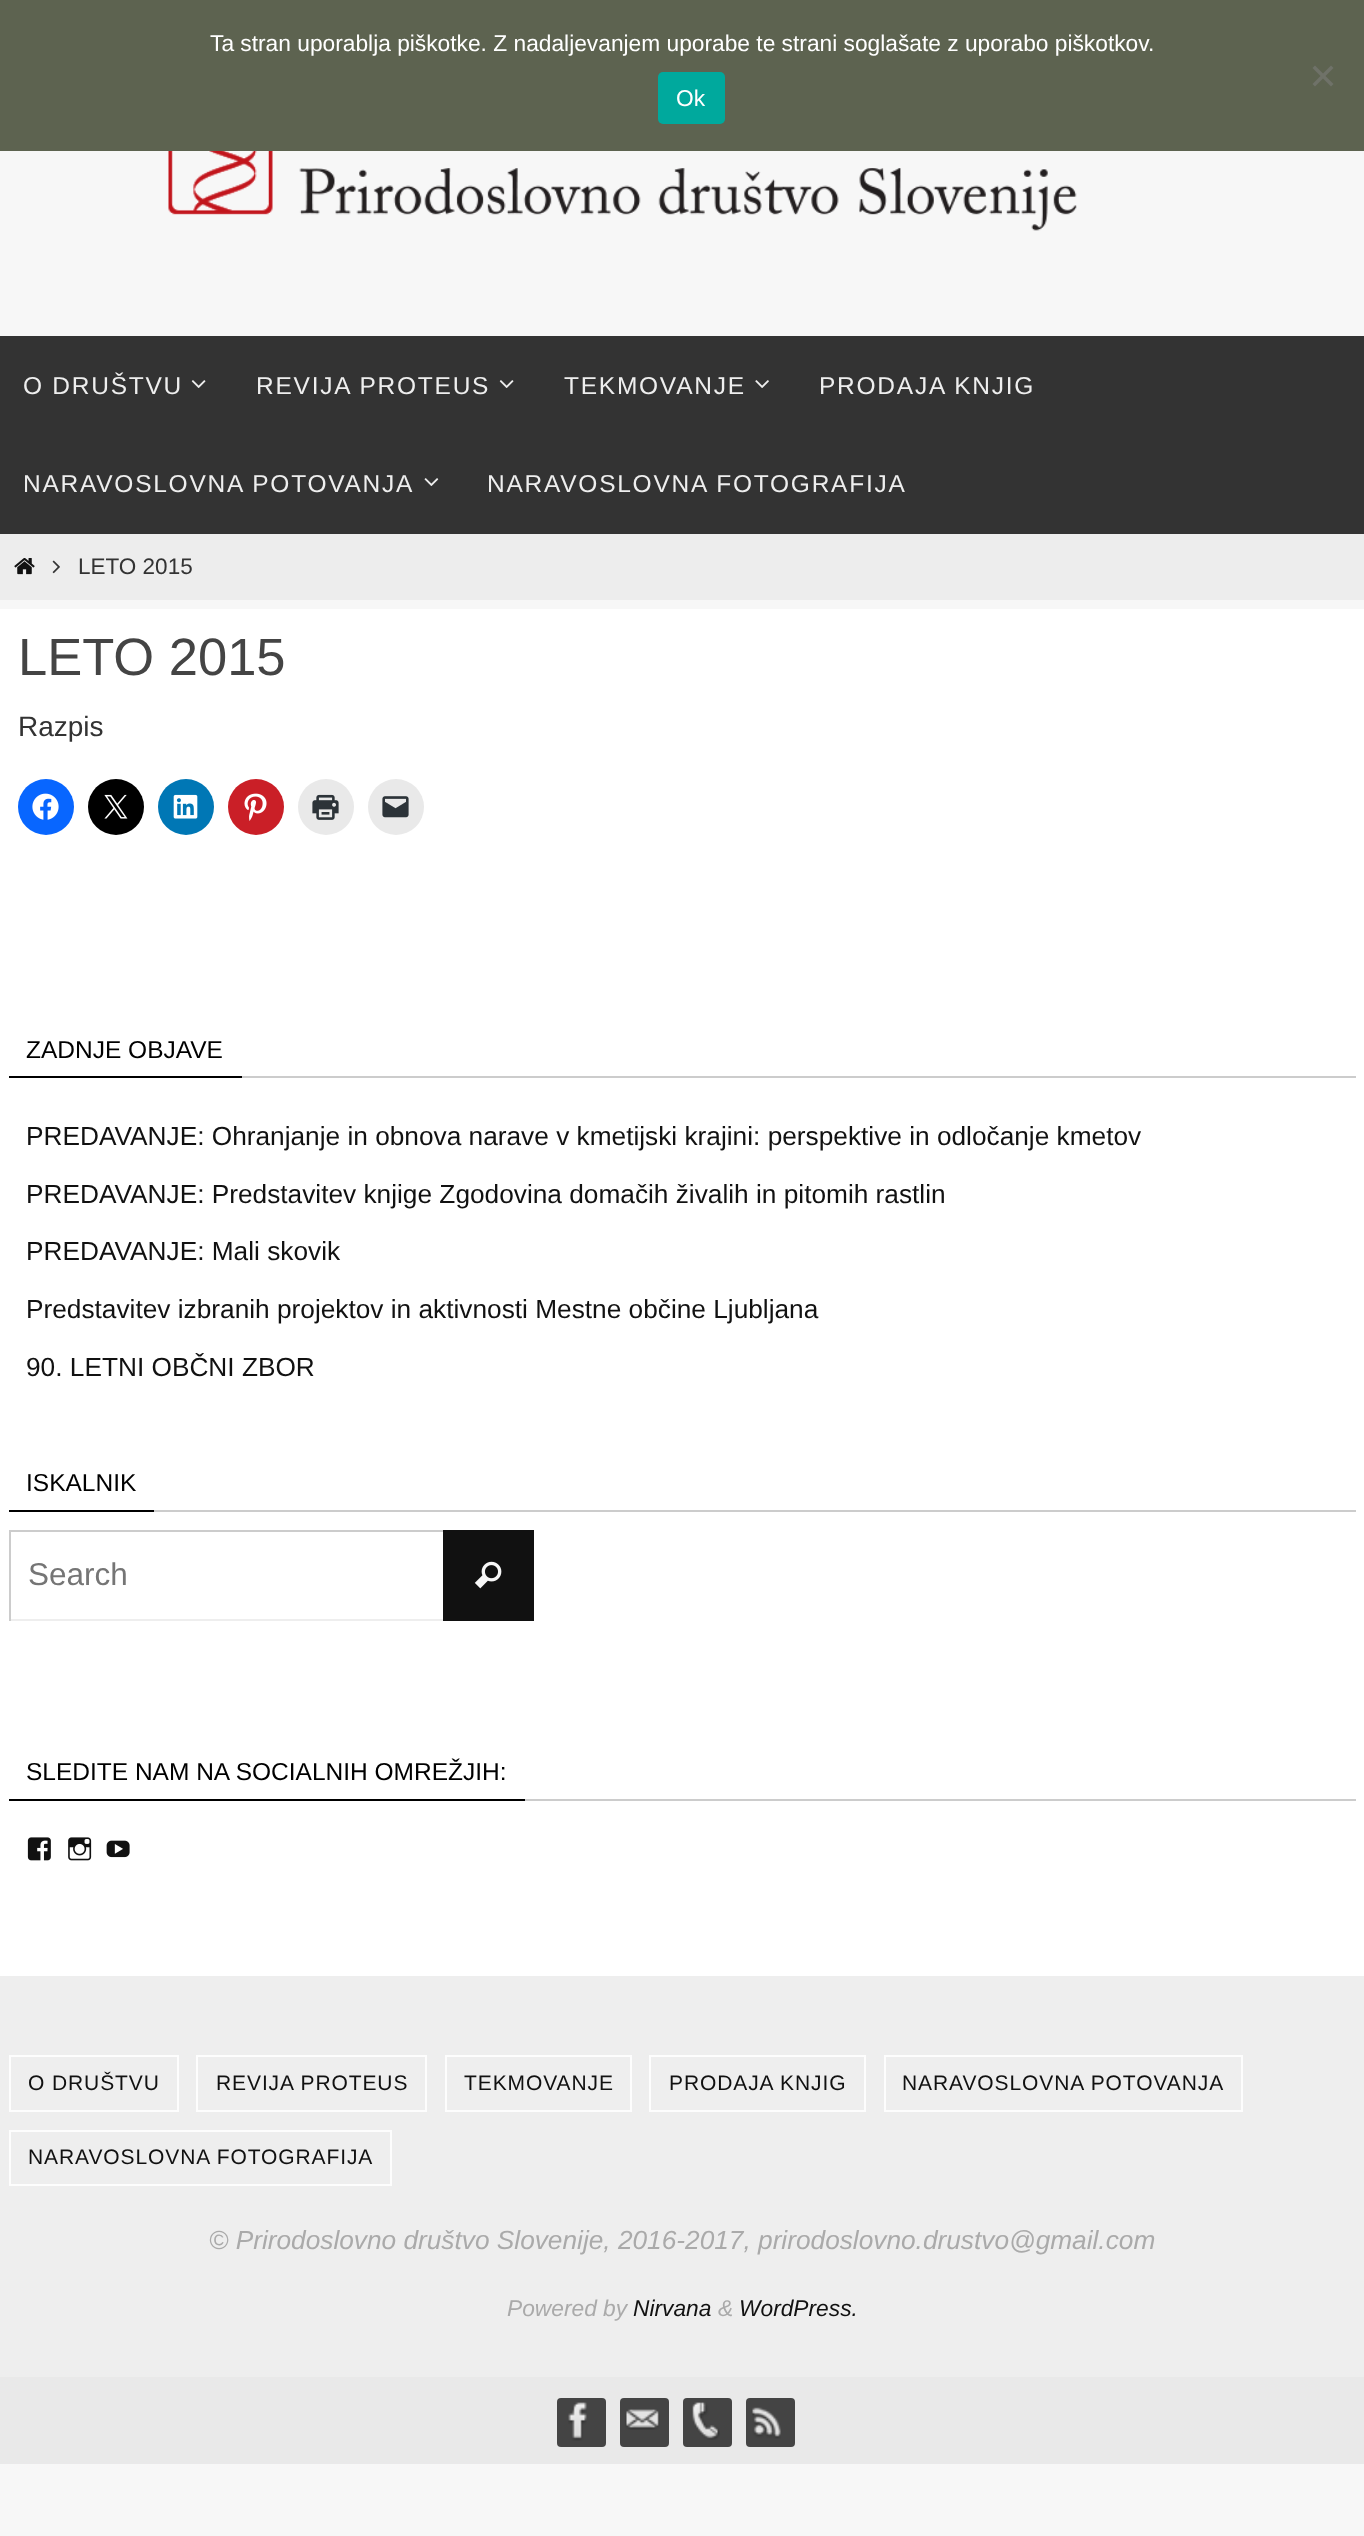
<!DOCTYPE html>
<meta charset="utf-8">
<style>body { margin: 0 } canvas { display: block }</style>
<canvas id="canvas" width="1364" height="2536"></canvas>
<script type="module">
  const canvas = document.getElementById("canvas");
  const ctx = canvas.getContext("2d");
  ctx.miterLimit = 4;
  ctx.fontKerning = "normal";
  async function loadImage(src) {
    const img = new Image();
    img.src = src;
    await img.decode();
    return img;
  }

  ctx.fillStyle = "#f7f7f7";
  ctx.fillRect(0, 0, 1364, 2536);
  ctx.fillStyle = "#5d6350";
  ctx.fillRect(0, 0, 1364, 151);
  ctx.font = "22.75px Liberation Sans";
  ctx.fillStyle = "#ffffff";
  ctx.fillText("Ta stran uporablja piškotke. Z nadaljevanjem uporabe te strani soglašate z uporabo piškotkov.", 210, 51);
  ctx.fillStyle = "#6f7268";
  ctx.beginPath();
  ctx.moveTo(1331, 65.5);
  ctx.lineTo(1333.5, 68);
  ctx.lineTo(1315, 86.5);
  ctx.lineTo(1312.5, 84);
  ctx.closePath();
  ctx.fill();
  ctx.beginPath();
  ctx.moveTo(1312.5, 68);
  ctx.lineTo(1315, 65.5);
  ctx.lineTo(1333.5, 84);
  ctx.lineTo(1331, 86.5);
  ctx.closePath();
  ctx.fill();
  ctx.fillStyle = "#00a99d";
  ctx.beginPath();
  ctx.roundRect(658, 72, 67, 52, 5);
  ctx.fill();
  ctx.fillStyle = "#ffffff";
  ctx.fillText("Ok", 676, 106);
  ctx.drawImage(await loadImage("img1.png"), 168, 151, 909, 80);
  ctx.fillStyle = "#333333";
  ctx.fillRect(0, 336, 1364, 198);
  ctx.letterSpacing = "1.75px";
  ctx.font = "24.5px Liberation Sans";
  ctx.fillStyle = "#eeeeee";
  ctx.fillText("O DRUŠTVU", 23, 394);
  ctx.drawImage(await loadImage("img2.png"), 191, 380, 15, 8);
  ctx.fillText("REVIJA PROTEUS", 256, 394);
  ctx.drawImage(await loadImage("img2.png"), 499, 380, 15, 8);
  ctx.fillText("TEKMOVANJE", 564, 394);
  ctx.drawImage(await loadImage("img3.png"), 755, 380, 14, 8);
  ctx.fillText("PRODAJA KNJIG", 819, 394);
  ctx.fillText("NARAVOSLOVNA POTOVANJA", 23, 492);
  ctx.drawImage(await loadImage("img4.png"), 424, 478, 15, 8);
  ctx.fillText("NARAVOSLOVNA FOTOGRAFIJA", 487, 492);
  ctx.fillStyle = "#ededed";
  ctx.fillRect(0, 534, 1364, 66);
  ctx.drawImage(await loadImage("img5.png"), 14, 558, 21, 17);
  ctx.drawImage(await loadImage("img6.png"), 52, 560, 8, 14);
  ctx.letterSpacing = "0px";
  ctx.font = "22.5px Liberation Sans";
  ctx.fillStyle = "#333333";
  ctx.fillText("LETO 2015", 78, 574);
  ctx.fillStyle = "#ffffff";
  ctx.fillRect(0, 609, 1364, 1367);
  ctx.font = "52.5px Liberation Sans";
  ctx.fillStyle = "#444444";
  ctx.fillText("LETO 2015", 18, 675);
  ctx.font = "28px Liberation Sans";
  ctx.fillStyle = "#333333";
  ctx.fillText("Razpis", 18, 736);
  ctx.fillStyle = "#0866ff";
  ctx.beginPath();
  ctx.arc(46, 807, 28, 0, Math.PI * 2);
  ctx.fill();
  ctx.drawImage(await loadImage("img7.png"), 32, 793, 27, 27);
  ctx.fillStyle = "#000000";
  ctx.beginPath();
  ctx.arc(116, 807, 28, 0, Math.PI * 2);
  ctx.fill();
  ctx.drawImage(await loadImage("img8.png"), 104, 794, 24, 25);
  ctx.fillStyle = "#0077b5";
  ctx.beginPath();
  ctx.arc(186, 807, 28, 0, Math.PI * 2);
  ctx.fill();
  ctx.drawImage(await loadImage("img9.png"), 173, 794, 25, 25);
  ctx.fillStyle = "#ca1f27";
  ctx.beginPath();
  ctx.arc(256, 807, 28, 0, Math.PI * 2);
  ctx.fill();
  ctx.drawImage(await loadImage("img10.png"), 244, 793, 23, 28);
  ctx.fillStyle = "#e9e9e9";
  ctx.beginPath();
  ctx.arc(326, 807, 28, 0, Math.PI * 2);
  ctx.fill();
  ctx.drawImage(await loadImage("img11.png"), 312, 794, 27, 26);
  ctx.beginPath();
  ctx.arc(396, 807, 28, 0, Math.PI * 2);
  ctx.fill();
  ctx.drawImage(await loadImage("img12.png"), 382, 796, 27, 22);
  ctx.fillStyle = "#cccccc";
  ctx.fillRect(242, 1076, 1114, 2);
  ctx.fillStyle = "#000000";
  ctx.fillRect(9, 1076, 233, 2);
  ctx.font = "24.5px Liberation Sans";
  ctx.fillText("ZADNJE OBJAVE", 26, 1058);
  ctx.font = "26.25px Liberation Sans";
  ctx.fillStyle = "#111111";
  ctx.fillText("PREDAVANJE: Ohranjanje in obnova narave v kmetijski krajini: perspektive in odločanje kmetov", 26, 1145);
  ctx.fillText("PREDAVANJE: Predstavitev knjige Zgodovina domačih živalih in pitomih rastlin", 26, 1203);
  ctx.fillText("PREDAVANJE: Mali skovik", 26, 1260);
  ctx.fillText("Predstavitev izbranih projektov in aktivnosti Mestne občine Ljubljana", 26, 1318);
  ctx.fillText("90. LETNI OBČNI ZBOR", 26, 1376);
  ctx.fillStyle = "#cccccc";
  ctx.fillRect(154, 1510, 1202, 2);
  ctx.fillStyle = "#000000";
  ctx.fillRect(9, 1510, 145, 2);
  ctx.font = "24.5px Liberation Sans";
  ctx.fillText("ISKALNIK", 26, 1491);
  ctx.fillStyle = "#111111";
  ctx.fillRect(443, 1530, 91, 91);
  ctx.fillStyle = "#cccccc";
  ctx.fillRect(9, 1530, 434, 2);
  ctx.fillStyle = "#eeeeee";
  ctx.fillRect(9, 1619, 434, 2);
  ctx.fillStyle = "#cccccc";
  ctx.fillRect(9, 1530, 2, 91);
  ctx.font = "31.5px Liberation Sans";
  ctx.fillStyle = "#757575";
  ctx.fillText("Search", 28, 1585);
  ctx.drawImage(await loadImage("img13.png"), 474, 1561, 28, 28);
  ctx.fillStyle = "#cccccc";
  ctx.fillRect(525, 1799, 831, 2);
  ctx.fillStyle = "#000000";
  ctx.fillRect(9, 1799, 516, 2);
  ctx.font = "24.5px Liberation Sans";
  ctx.fillText("SLEDITE NAM NA SOCIALNIH OMREŽJIH:", 26, 1780);
  ctx.drawImage(await loadImage("img14.png"), 27, 1837, 24, 24);
  ctx.drawImage(await loadImage("img15.png"), 68, 1837, 24, 24);
  ctx.drawImage(await loadImage("img16.png"), 106, 1840, 24, 18);
  ctx.fillStyle = "#eeeeee";
  ctx.fillRect(0, 1976, 1364, 401);
  ctx.strokeStyle = "#fdfdfd";
  ctx.lineWidth = 2;
  ctx.strokeRect(10, 2056, 168, 55);
  ctx.letterSpacing = "0.9px";
  ctx.font = "21px Liberation Sans";
  ctx.fillStyle = "#111111";
  ctx.fillText("O DRUŠTVU", 28, 2090);
  ctx.strokeRect(197, 2056, 229, 55);
  ctx.fillText("REVIJA PROTEUS", 216, 2090);
  ctx.strokeRect(446, 2056, 185, 55);
  ctx.fillText("TEKMOVANJE", 464, 2090);
  ctx.strokeRect(650, 2056, 215, 55);
  ctx.fillText("PRODAJA KNJIG", 669, 2090);
  ctx.strokeRect(885, 2056, 357, 55);
  ctx.fillText("NARAVOSLOVNA POTOVANJA", 902, 2090);
  ctx.strokeRect(10, 2131, 381, 54);
  ctx.fillText("NARAVOSLOVNA FOTOGRAFIJA", 28, 2164);
  ctx.letterSpacing = "0px";
  ctx.font = "italic 26.25px Liberation Sans";
  ctx.fillStyle = "#aaaaaa";
  ctx.fillText("© Prirodoslovno društvo Slovenije, 2016-2017, prirodoslovno.drustvo@gmail.com", 209, 2249);
  ctx.font = "italic 22.75px Liberation Sans";
  ctx.fillText("Powered by", 507, 2316);
  ctx.fillStyle = "#111111";
  ctx.fillText("Nirvana", 633, 2316);
  ctx.fillStyle = "#aaaaaa";
  ctx.fillText("&", 718, 2316);
  ctx.fillStyle = "#111111";
  ctx.fillText("WordPress.", 739, 2316);
  ctx.fillStyle = "#e9e9e9";
  ctx.fillRect(0, 2377, 1364, 87);
  ctx.fillStyle = "#444444";
  ctx.beginPath();
  ctx.roundRect(557, 2398, 49, 49, 4);
  ctx.fill();
  ctx.drawImage(await loadImage("img17.png"), 568, 2402, 19, 39);
  ctx.beginPath();
  ctx.roundRect(620, 2398, 49, 49, 4);
  ctx.fill();
  ctx.drawImage(await loadImage("img18.png"), 625, 2409, 35, 21);
  ctx.beginPath();
  ctx.roundRect(683, 2398, 49, 49, 4);
  ctx.fill();
  ctx.drawImage(await loadImage("img19.png"), 692, 2402, 28, 38);
  ctx.beginPath();
  ctx.roundRect(746, 2398, 49, 49, 4);
  ctx.fill();
  ctx.drawImage(await loadImage("img20.png"), 752, 2407, 29, 32);
</script>
